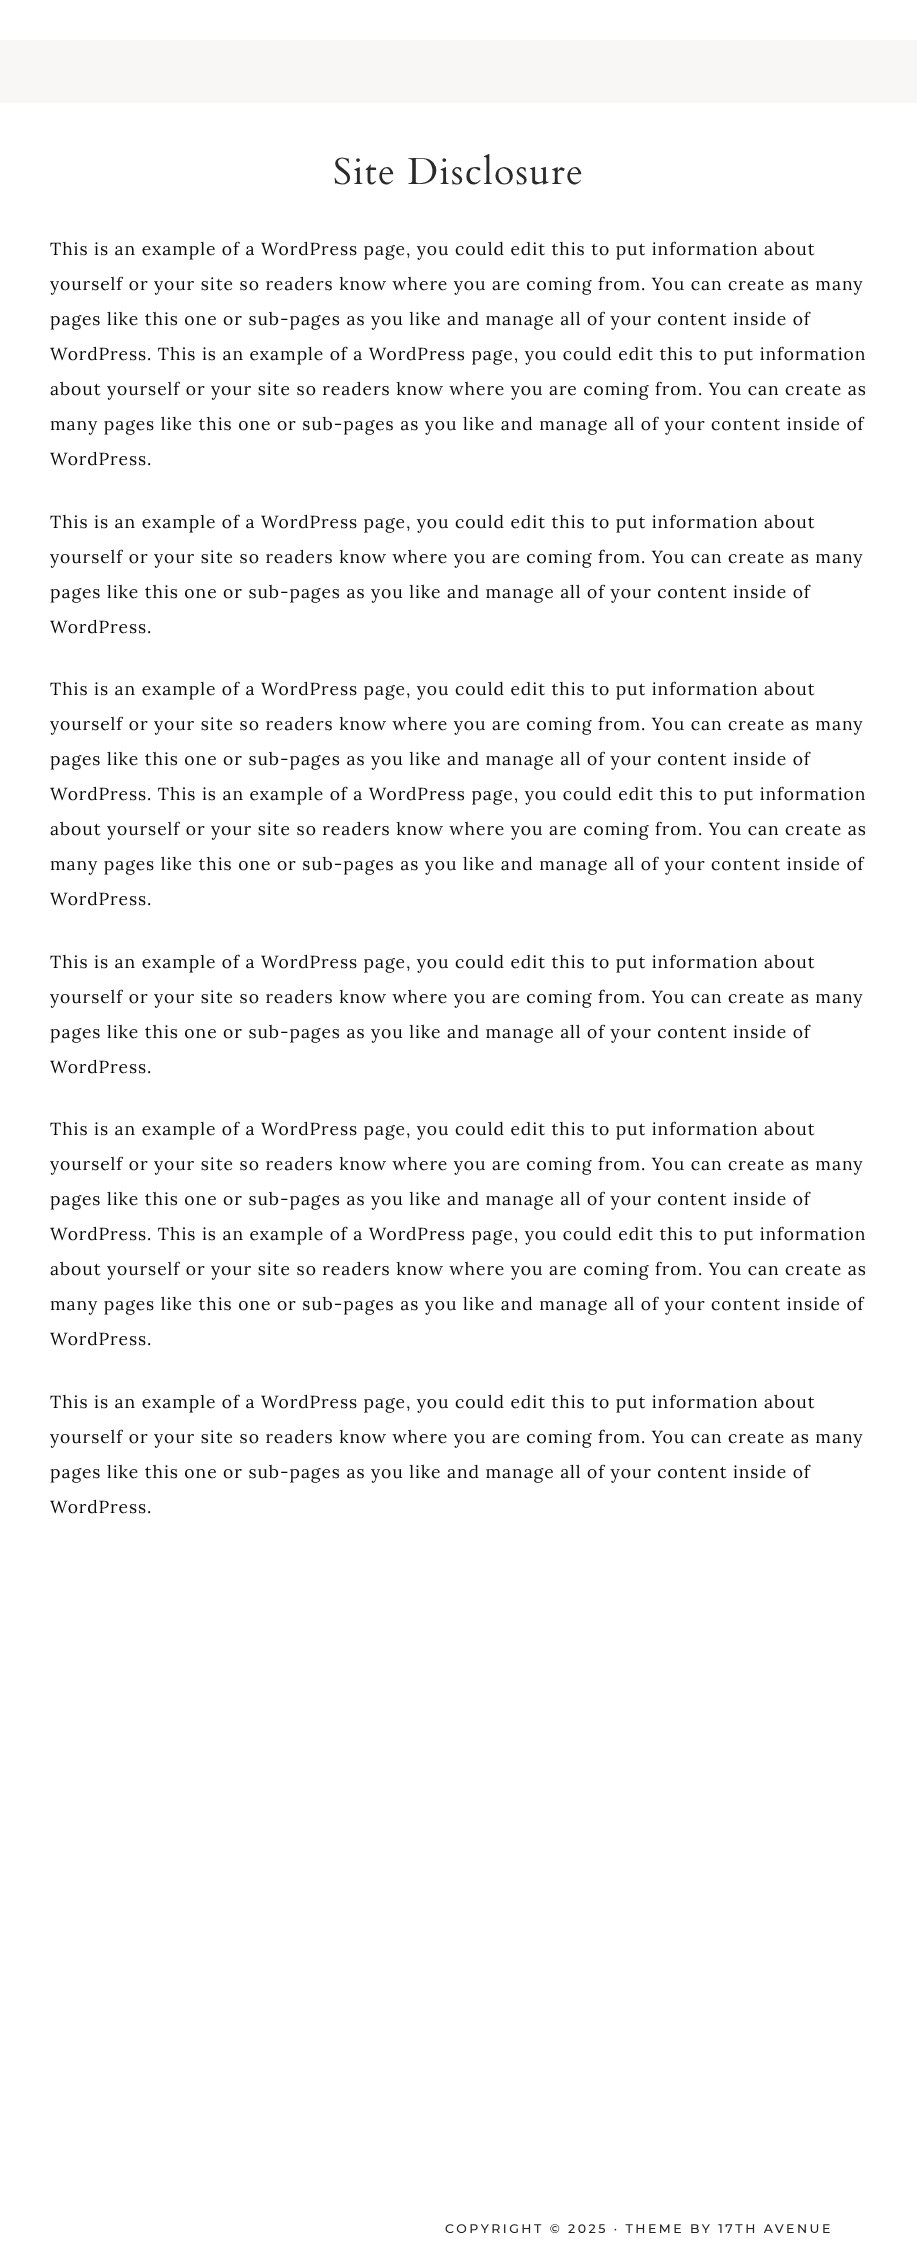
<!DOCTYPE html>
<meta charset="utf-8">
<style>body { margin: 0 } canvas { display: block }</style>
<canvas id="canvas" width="917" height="2255"></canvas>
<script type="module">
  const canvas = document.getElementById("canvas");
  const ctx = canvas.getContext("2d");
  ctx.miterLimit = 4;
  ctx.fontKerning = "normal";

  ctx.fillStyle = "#ffffff";
  ctx.fillRect(0, 0, 917, 2255);
  ctx.fillStyle = "#f9f7f6";
  ctx.fillRect(0, 40, 917, 63);
  ctx.letterSpacing = "1.25px";
  ctx.font = "37.5px Cardo";
  ctx.fillStyle = "#2b2b2b";
  ctx.fillText("Site Disclosure", 333, 184);
  ctx.letterSpacing = "0.95px";
  ctx.font = "17.5px Lora";
  ctx.fillStyle = "#0a0a0a";
  ctx.fillText("This is an example of a WordPress page, you could edit this to put information about", 50, 255);
  ctx.fillText("yourself or your site so readers know where you are coming from. You can create as many", 50, 290);
  ctx.fillText("pages like this one or sub-pages as you like and manage all of your content inside of", 50, 325);
  ctx.fillText("WordPress. This is an example of a WordPress page, you could edit this to put information", 50, 360);
  ctx.fillText("about yourself or your site so readers know where you are coming from. You can create as", 50, 395);
  ctx.fillText("many pages like this one or sub-pages as you like and manage all of your content inside of", 50, 430);
  ctx.fillText("WordPress.", 50, 465);
  ctx.fillText("This is an example of a WordPress page, you could edit this to put information about", 50, 528);
  ctx.fillText("yourself or your site so readers know where you are coming from. You can create as many", 50, 563);
  ctx.fillText("pages like this one or sub-pages as you like and manage all of your content inside of", 50, 598);
  ctx.fillText("WordPress.", 50, 633);
  ctx.fillText("This is an example of a WordPress page, you could edit this to put information about", 50, 695);
  ctx.fillText("yourself or your site so readers know where you are coming from. You can create as many", 50, 730);
  ctx.fillText("pages like this one or sub-pages as you like and manage all of your content inside of", 50, 765);
  ctx.fillText("WordPress. This is an example of a WordPress page, you could edit this to put information", 50, 800);
  ctx.fillText("about yourself or your site so readers know where you are coming from. You can create as", 50, 835);
  ctx.fillText("many pages like this one or sub-pages as you like and manage all of your content inside of", 50, 870);
  ctx.fillText("WordPress.", 50, 905);
  ctx.fillText("This is an example of a WordPress page, you could edit this to put information about", 50, 968);
  ctx.fillText("yourself or your site so readers know where you are coming from. You can create as many", 50, 1003);
  ctx.fillText("pages like this one or sub-pages as you like and manage all of your content inside of", 50, 1038);
  ctx.fillText("WordPress.", 50, 1073);
  ctx.fillText("This is an example of a WordPress page, you could edit this to put information about", 50, 1135);
  ctx.fillText("yourself or your site so readers know where you are coming from. You can create as many", 50, 1170);
  ctx.fillText("pages like this one or sub-pages as you like and manage all of your content inside of", 50, 1205);
  ctx.fillText("WordPress. This is an example of a WordPress page, you could edit this to put information", 50, 1240);
  ctx.fillText("about yourself or your site so readers know where you are coming from. You can create as", 50, 1275);
  ctx.fillText("many pages like this one or sub-pages as you like and manage all of your content inside of", 50, 1310);
  ctx.fillText("WordPress.", 50, 1345);
  ctx.fillText("This is an example of a WordPress page, you could edit this to put information about", 50, 1408);
  ctx.fillText("yourself or your site so readers know where you are coming from. You can create as many", 50, 1443);
  ctx.fillText("pages like this one or sub-pages as you like and manage all of your content inside of", 50, 1478);
  ctx.fillText("WordPress.", 50, 1513);
  ctx.letterSpacing = "2.5px";
  ctx.font = "100 12.5px Montserrat";
  ctx.fillStyle = "#222222";
  ctx.fillText("COPYRIGHT © 2025 · THEME BY 17TH AVENUE", 445, 2233);
</script>
